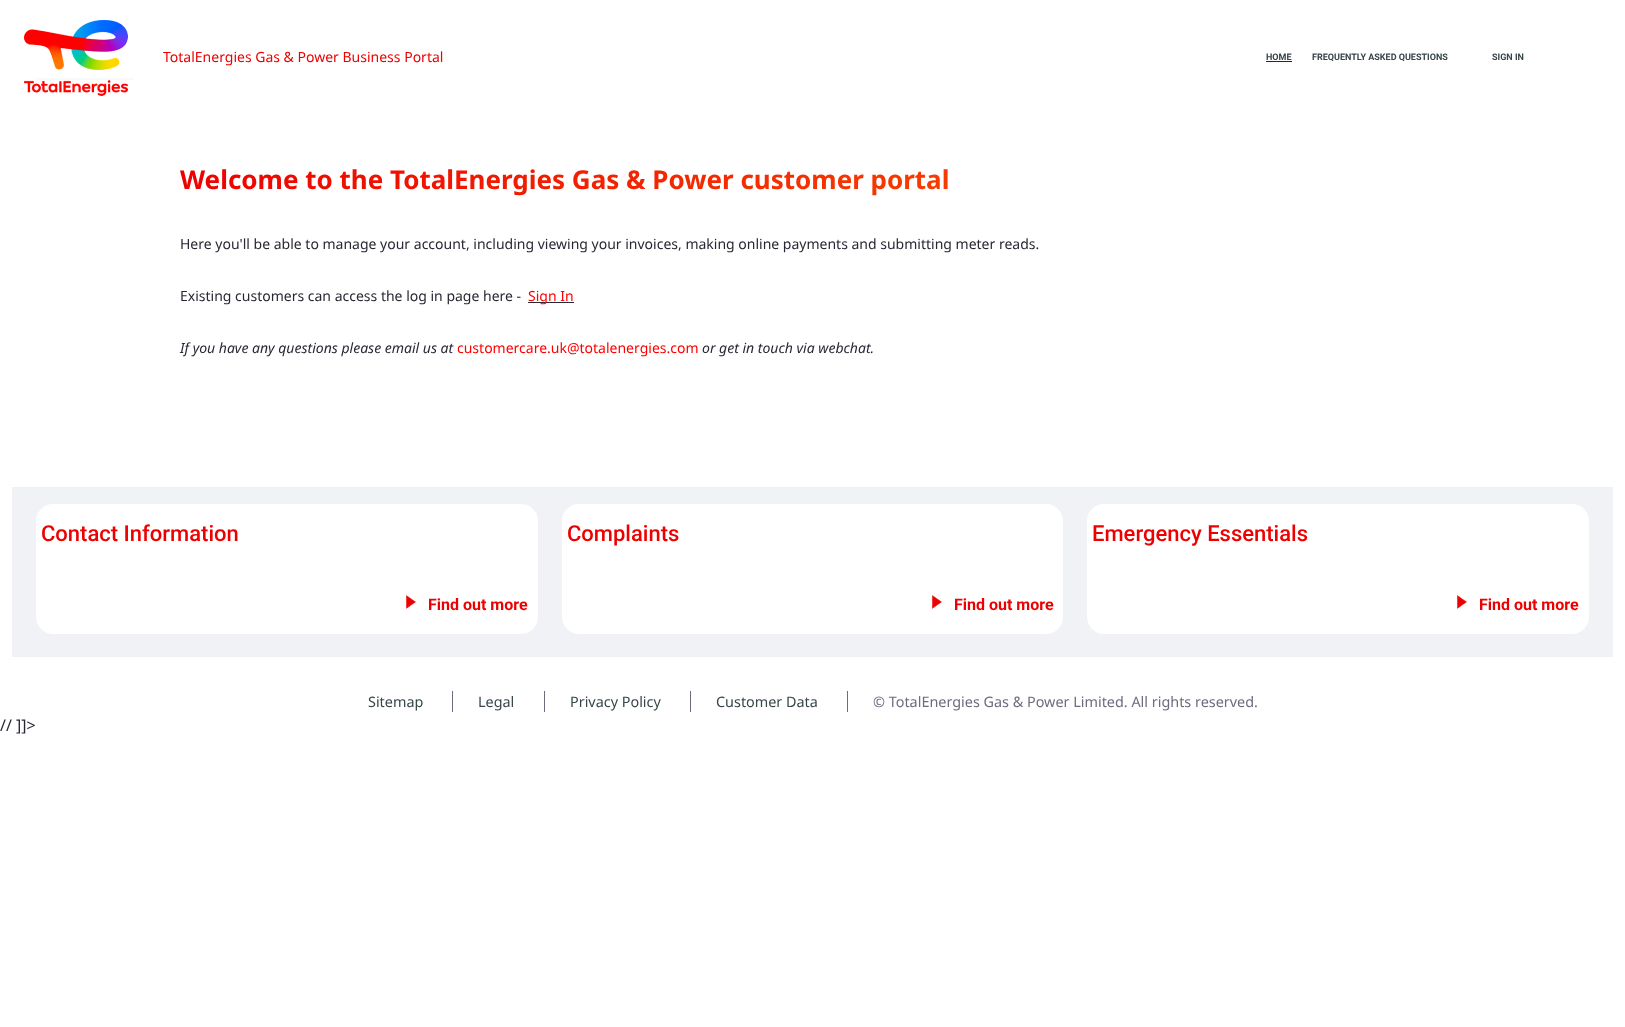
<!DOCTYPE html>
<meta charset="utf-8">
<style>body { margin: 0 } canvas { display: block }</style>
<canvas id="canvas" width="1625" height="1027"></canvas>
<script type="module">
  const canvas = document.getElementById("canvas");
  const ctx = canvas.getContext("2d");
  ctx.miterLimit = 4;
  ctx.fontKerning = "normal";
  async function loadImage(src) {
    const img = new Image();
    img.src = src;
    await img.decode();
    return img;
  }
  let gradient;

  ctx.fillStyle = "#ffffff";
  ctx.fillRect(0, 0, 1625, 1027);
  ctx.drawImage(await loadImage("img1.png"), 24, 20, 104, 76);
  ctx.font = "14px Noto Sans";
  ctx.fillStyle = "#ed0000";
  ctx.fillText("TotalEnergies Gas & Power Business Portal", 163, 62);
  ctx.font = "bold 9px Roboto";
  ctx.fillStyle = "#374649";
  ctx.fillText("HOME", 1266, 60);
  ctx.fillStyle = "#272833";
  ctx.fillRect(1266, 61, 26, 1);
  ctx.fillStyle = "#374649";
  ctx.fillText("FREQUENTLY ASKED QUESTIONS", 1312, 60);
  ctx.fillText("SIGN IN", 1492, 60);
  ctx.fillStyle = "#f7f9fa";
  ctx.fillRect(36, 78, 98, 2);
  ctx.font = "bold 26px Noto Sans";
  gradient = ctx.createLinearGradient(612, -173, 1163, 533);
  gradient.addColorStop(0, "#ed0000");
  gradient.addColorStop(1, "#ff6e00");
  ctx.fillStyle = gradient;
  ctx.fillText("Welcome to the TotalEnergies Gas & Power customer portal", 180, 189);
  ctx.font = "14px Noto Sans";
  ctx.fillStyle = "#272833";
  ctx.fillText("Here you'll be able to manage your account, including viewing your invoices, making online payments and submitting meter reads.", 180, 249);
  ctx.fillText("Existing customers can access the log in page here -", 180, 301);
  ctx.fillRect(528, 302, 46, 1);
  ctx.fillStyle = "#ff0000";
  ctx.fillText("Sign In", 528, 301);
  ctx.font = "italic 14px Noto Sans";
  ctx.fillStyle = "#272833";
  ctx.fillText("If you have any questions please email us at", 180, 353);
  ctx.font = "14px Noto Sans";
  ctx.fillStyle = "#ff0000";
  ctx.fillText("customercare.uk@totalenergies.com", 457, 353);
  ctx.font = "italic 14px Noto Sans";
  ctx.fillStyle = "#272833";
  ctx.fillText("or get in touch via webchat.", 702, 353);
  ctx.fillStyle = "#f1f2f5";
  ctx.fillRect(12, 487, 1601, 170);
  ctx.fillStyle = "#ffffff";
  ctx.beginPath();
  ctx.roundRect(36, 504, 502, 130, 17);
  ctx.fill();
  ctx.font = "500 22px Roboto";
  ctx.fillStyle = "#ed0000";
  ctx.fillText("Contact Information", 41, 541);
  ctx.drawImage(await loadImage("img2.png"), 406, 595, 10, 14);
  ctx.font = "bold 16px Roboto";
  ctx.fillText("Find out more", 428, 610);
  ctx.fillStyle = "#ffffff";
  ctx.beginPath();
  ctx.roundRect(562, 504, 501, 130, 17);
  ctx.fill();
  ctx.font = "500 22px Roboto";
  ctx.fillStyle = "#ed0000";
  ctx.fillText("Complaints", 567, 541);
  ctx.drawImage(await loadImage("img2.png"), 932, 595, 10, 14);
  ctx.font = "bold 16px Roboto";
  ctx.fillText("Find out more", 954, 610);
  ctx.fillStyle = "#ffffff";
  ctx.beginPath();
  ctx.roundRect(1087, 504, 502, 130, 17);
  ctx.fill();
  ctx.font = "500 22px Roboto";
  ctx.fillStyle = "#ed0000";
  ctx.fillText("Emergency Essentials", 1092, 541);
  ctx.drawImage(await loadImage("img2.png"), 1457, 595, 10, 14);
  ctx.font = "bold 16px Roboto";
  ctx.fillText("Find out more", 1479, 610);
  ctx.font = "14.4px Noto Sans";
  ctx.fillStyle = "#374649";
  ctx.fillText("Sitemap", 368, 707);
  ctx.fillStyle = "#6b6c7e";
  ctx.fillRect(452, 691, 1, 21);
  ctx.fillStyle = "#374649";
  ctx.fillText("Legal", 478, 707);
  ctx.fillStyle = "#6b6c7e";
  ctx.fillRect(544, 691, 1, 21);
  ctx.fillStyle = "#374649";
  ctx.fillText("Privacy Policy", 570, 707);
  ctx.fillStyle = "#6b6c7e";
  ctx.fillRect(690, 691, 1, 21);
  ctx.fillStyle = "#374649";
  ctx.fillText("Customer Data", 716, 707);
  ctx.fillStyle = "#6b6c7e";
  ctx.fillRect(847, 691, 1, 21);
  ctx.fillText("© TotalEnergies Gas & Power Limited. All rights reserved.", 873, 707);
  ctx.font = "16px Noto Sans";
  ctx.fillStyle = "#272833";
  ctx.fillText("// ]]>", 0, 731);
</script>
